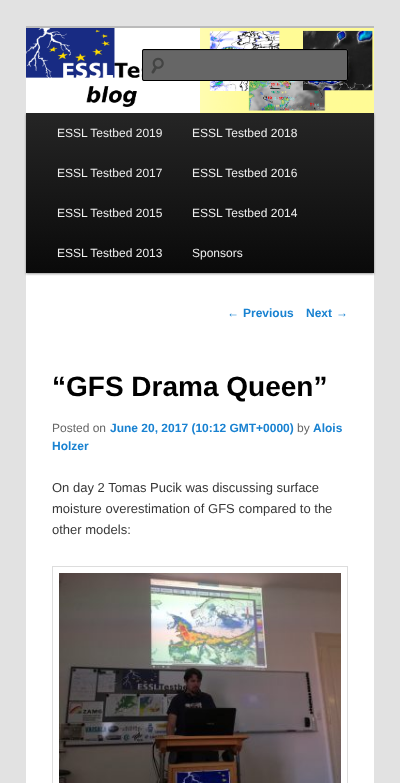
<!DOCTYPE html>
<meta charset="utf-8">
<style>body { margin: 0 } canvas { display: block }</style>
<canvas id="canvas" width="400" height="783"></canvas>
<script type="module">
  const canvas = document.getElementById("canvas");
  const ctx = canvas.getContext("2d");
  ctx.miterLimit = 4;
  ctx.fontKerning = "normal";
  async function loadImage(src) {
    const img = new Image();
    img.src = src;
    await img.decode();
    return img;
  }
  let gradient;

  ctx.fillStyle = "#e2e2e2";
  ctx.fillRect(0, 0, 400, 783);
  ctx.fillStyle = "#ffffff";
  ctx.fillRect(26, 273, 348, 510);
  ctx.fillStyle = "#bbbbbb";
  ctx.fillRect(26, 26, 348, 2);
  ctx.fillStyle = "rgba(0, 0, 0, 0.4)";
  ctx.filter = "blur(1px)";
  ctx.beginPath();
  ctx.rect(26, 114, 348, 160);
  ctx.fill();
  ctx.filter = "none";
  ctx.drawImage(await loadImage("img1.png"), 26, 28, 348, 85);
  ctx.fillStyle = "#666666";
  ctx.beginPath();
  ctx.roundRect(142, 49, 206, 32, 2);
  ctx.fill();
  ctx.drawImage(await loadImage("img2.png"), 151, 57, 13, 17);
  ctx.fillStyle = "#5c5c5c";
  ctx.beginPath();
  ctx.moveTo(144, 51);
  ctx.lineTo(347, 51);
  ctx.lineTo(347, 52);
  ctx.lineTo(347, 50);
  ctx.lineTo(346, 50);
  ctx.lineTo(144, 50);
  ctx.bezierCurveTo(143, 50, 143, 51, 143, 52);
  ctx.bezierCurveTo(143, 51, 143, 51, 144, 51);
  ctx.closePath();
  ctx.fill();
  ctx.beginPath();
  ctx.roundRect(142.5, 49.5, 205, 31, 1.5);
  ctx.strokeStyle = "#000000";
  ctx.stroke();
  gradient = ctx.createLinearGradient(200, 113, 200, 273);
  gradient.addColorStop(0, "#252525");
  gradient.addColorStop(1, "#0a0a0a");
  ctx.fillStyle = gradient;
  ctx.fillRect(26, 113, 348, 160);
  ctx.font = "12px Liberation Sans";
  ctx.fillStyle = "#eeeeee";
  ctx.fillText("ESSL Testbed 2019", 57, 137);
  ctx.fillText("ESSL Testbed 2018", 192, 137);
  ctx.fillText("ESSL Testbed 2017", 57, 177);
  ctx.fillText("ESSL Testbed 2016", 192, 177);
  ctx.fillText("ESSL Testbed 2015", 57, 217);
  ctx.fillText("ESSL Testbed 2014", 192, 217);
  ctx.fillText("ESSL Testbed 2013", 57, 257);
  ctx.fillText("Sponsors", 192, 257);
  ctx.fillStyle = "#1982d1";
  ctx.fillText("←", 227, 317);
  ctx.font = "bold 12px Liberation Sans";
  ctx.fillText("Previous", 243, 317);
  ctx.fillText("Next", 306, 317);
  ctx.font = "12px Liberation Sans";
  ctx.fillText("→", 336, 317);
  ctx.font = "bold 28px Liberation Sans";
  ctx.fillStyle = "#000000";
  ctx.fillText("“GFS Drama Queen”", 52, 396);
  ctx.font = "12px Liberation Sans";
  ctx.fillStyle = "#666666";
  ctx.fillText("Posted on", 52, 432);
  ctx.font = "bold 12px Liberation Sans";
  ctx.fillStyle = "#1982d1";
  ctx.fillText("June 20, 2017 (10:12 GMT+0000)", 110, 432);
  ctx.font = "12px Liberation Sans";
  ctx.fillStyle = "#666666";
  ctx.fillText("by", 297, 432);
  ctx.font = "bold 12px Liberation Sans";
  ctx.fillStyle = "#1982d1";
  ctx.fillText("Alois", 313, 432);
  ctx.fillText("Holzer", 52, 450);
  ctx.font = "13px Liberation Sans";
  ctx.fillStyle = "#373737";
  ctx.fillText("On day 2 Tomas Pucik was discussing surface", 52, 492);
  ctx.fillText("moisture overestimation of GFS compared to the", 52, 513);
  ctx.fillText("other models:", 52, 534);
  ctx.strokeStyle = "#dddddd";
  ctx.strokeRect(52.5, 566.5, 295, 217);
  ctx.drawImage(await loadImage("img3.png"), 59, 573, 282, 210);
</script>
